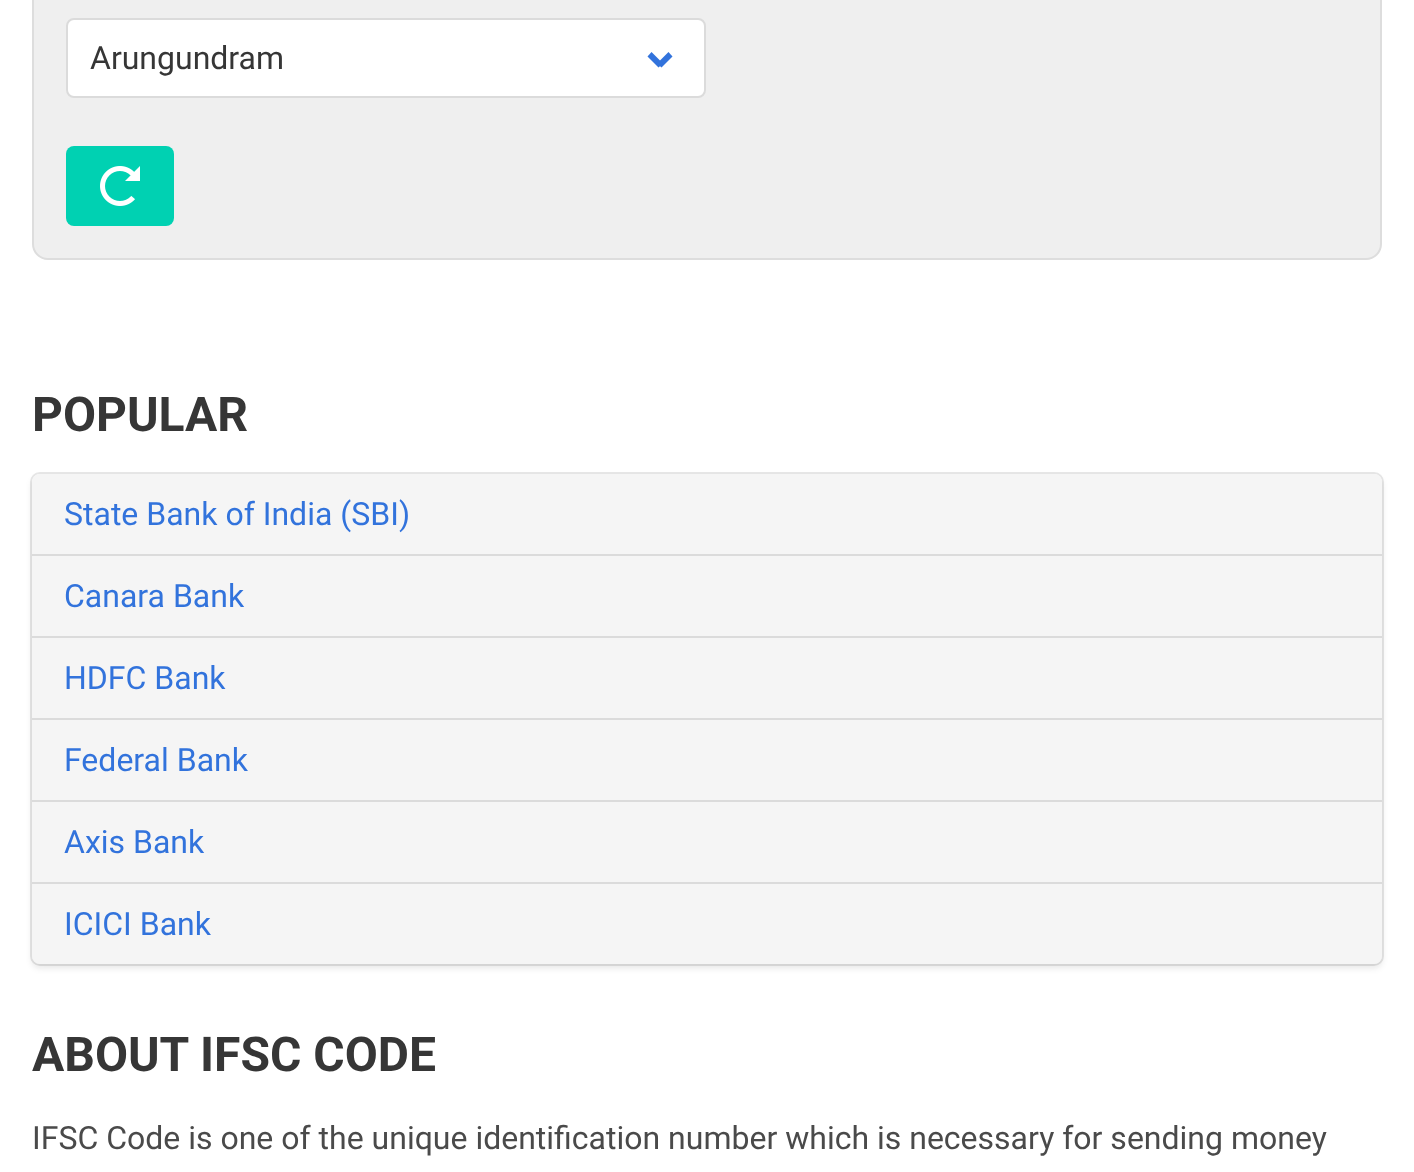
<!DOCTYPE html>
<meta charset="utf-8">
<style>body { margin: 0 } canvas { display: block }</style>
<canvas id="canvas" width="1414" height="1172"></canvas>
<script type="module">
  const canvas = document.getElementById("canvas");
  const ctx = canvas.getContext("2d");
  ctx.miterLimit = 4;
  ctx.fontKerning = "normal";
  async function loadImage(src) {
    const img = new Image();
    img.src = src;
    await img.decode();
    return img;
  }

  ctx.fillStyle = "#ffffff";
  ctx.fillRect(0, 0, 1414, 1172);
  ctx.fillStyle = "#efefef";
  ctx.beginPath();
  ctx.roundRect(33, -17, 1348, 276, 15);
  ctx.fill();
  ctx.strokeStyle = "#dddddd";
  ctx.lineWidth = 2;
  ctx.stroke();
  ctx.fillStyle = "#ffffff";
  ctx.beginPath();
  ctx.roundRect(67, 19, 638, 78, 7);
  ctx.fill();
  ctx.strokeStyle = "#dbdbdb";
  ctx.stroke();
  ctx.font = "32px Roboto";
  ctx.fillStyle = "#363636";
  ctx.fillText("Arungundram", 90, 69);
  ctx.fillStyle = "#3273dc";
  ctx.beginPath();
  ctx.moveTo(657, 63.5);
  ctx.lineTo(668.5, 52);
  ctx.lineTo(672.5, 56.5);
  ctx.lineTo(661.5, 67.5);
  ctx.closePath();
  ctx.fill();
  ctx.beginPath();
  ctx.moveTo(647.5, 56.5);
  ctx.lineTo(651.5, 52);
  ctx.lineTo(663, 63.5);
  ctx.lineTo(658.5, 67.5);
  ctx.closePath();
  ctx.fill();
  ctx.fillStyle = "#00d1b2";
  ctx.beginPath();
  ctx.roundRect(66, 146, 108, 80, 8);
  ctx.fill();
  ctx.drawImage(await loadImage("img1.png"), 100, 166, 40, 40);
  ctx.font = "bold 48px Roboto";
  ctx.fillStyle = "#363636";
  ctx.fillText("POPULAR", 32, 431);
  ctx.beginPath();
  ctx.roundRect(31, 473, 1352, 492, 9);
  ctx.strokeStyle = "#e7e7e7";
  ctx.stroke();
  ctx.fillStyle = "rgba(10, 10, 10, 0.1)";
  ctx.filter = "blur(3px)";
  ctx.beginPath();
  ctx.roundRect(32, 478, 1350, 490, 8);
  ctx.fill();
  ctx.filter = "none";
  ctx.fillStyle = "#f5f5f5";
  ctx.beginPath();
  ctx.roundRect(32, 474, 1350, 82, [8, 8, 0, 0]);
  ctx.fill();
  ctx.fillStyle = "#dbdbdb";
  ctx.fillRect(32, 554, 1350, 2);
  ctx.font = "32px Roboto";
  ctx.fillStyle = "#3273dc";
  ctx.fillText("State Bank of India (SBI)", 64, 525);
  ctx.fillStyle = "#f5f5f5";
  ctx.fillRect(32, 556, 1350, 80);
  ctx.fillStyle = "#dbdbdb";
  ctx.fillRect(32, 636, 1350, 2);
  ctx.fillStyle = "#3273dc";
  ctx.fillText("Canara Bank", 64, 607);
  ctx.fillStyle = "#f5f5f5";
  ctx.fillRect(32, 638, 1350, 80);
  ctx.fillStyle = "#dbdbdb";
  ctx.fillRect(32, 718, 1350, 2);
  ctx.fillStyle = "#3273dc";
  ctx.fillText("HDFC Bank", 64, 689);
  ctx.fillStyle = "#f5f5f5";
  ctx.fillRect(32, 720, 1350, 80);
  ctx.fillStyle = "#dbdbdb";
  ctx.fillRect(32, 800, 1350, 2);
  ctx.fillStyle = "#3273dc";
  ctx.fillText("Federal Bank", 64, 771);
  ctx.fillStyle = "#f5f5f5";
  ctx.fillRect(32, 802, 1350, 80);
  ctx.fillStyle = "#dbdbdb";
  ctx.fillRect(32, 882, 1350, 2);
  ctx.fillStyle = "#3273dc";
  ctx.fillText("Axis Bank", 64, 853);
  ctx.fillStyle = "#f5f5f5";
  ctx.beginPath();
  ctx.roundRect(32, 884, 1350, 80, [0, 0, 8, 8]);
  ctx.fill();
  ctx.fillStyle = "#3273dc";
  ctx.fillText("ICICI Bank", 64, 935);
  ctx.font = "bold 48px Roboto";
  ctx.fillStyle = "#363636";
  ctx.fillText("ABOUT IFSC CODE", 32, 1071);
  ctx.font = "32px Roboto";
  ctx.fillStyle = "#4a4a4a";
  ctx.fillText("IFSC Code is one of the unique identification number which is necessary for sending money", 32, 1149);
</script>
